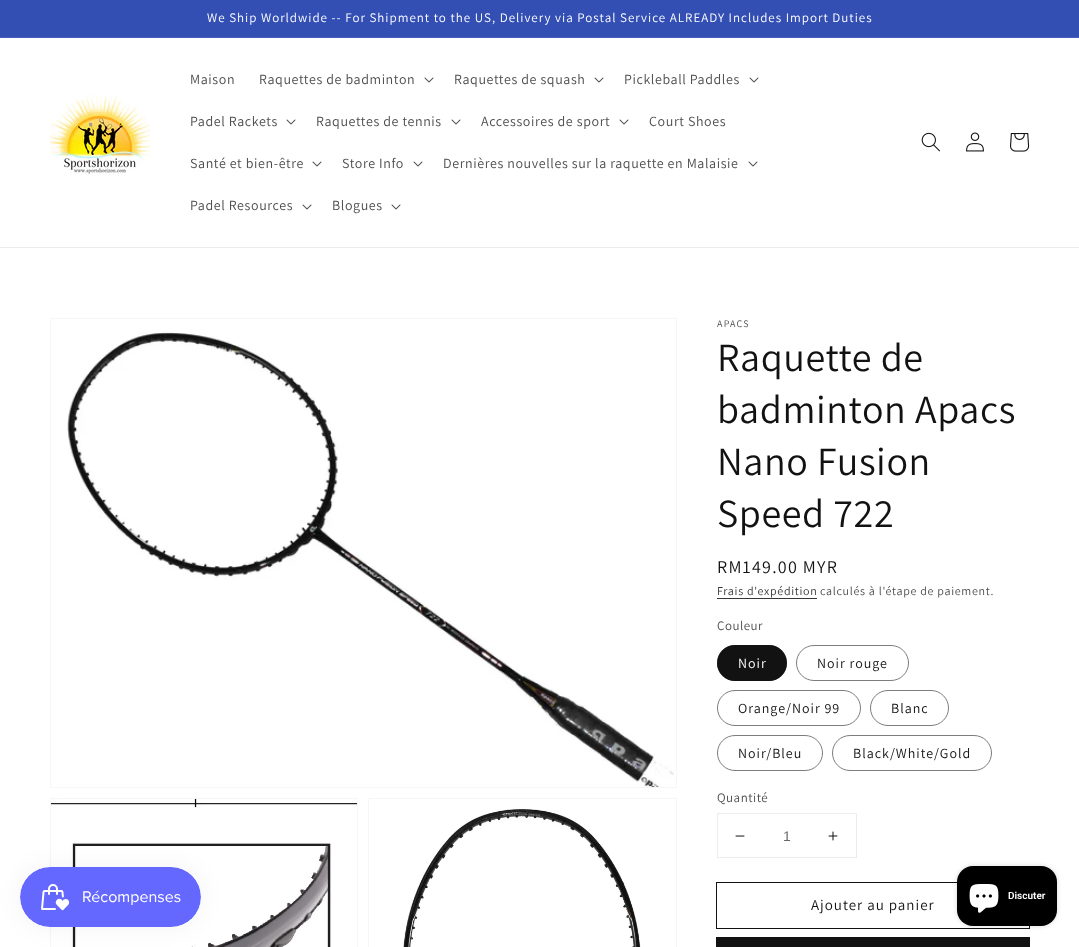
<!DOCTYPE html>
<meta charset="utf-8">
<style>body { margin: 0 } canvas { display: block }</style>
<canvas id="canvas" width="1079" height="947"></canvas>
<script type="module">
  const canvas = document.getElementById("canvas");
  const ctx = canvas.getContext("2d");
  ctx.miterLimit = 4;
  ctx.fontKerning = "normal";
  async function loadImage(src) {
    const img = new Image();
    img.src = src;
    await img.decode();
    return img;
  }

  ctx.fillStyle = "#ffffff";
  ctx.fillRect(0, 0, 1079, 947);
  ctx.fillStyle = "#334fb4";
  ctx.fillRect(0, 0, 1079, 37);
  ctx.fillStyle = "#435dba";
  ctx.fillRect(0, 37, 1079, 1);
  ctx.letterSpacing = "1px";
  ctx.font = "13px Assistant";
  ctx.fillStyle = "#ffffff";
  ctx.fillText("We Ship Worldwide -- For Shipment to the US, Delivery via Postal Service ALREADY Includes Import Duties", 207, 22);
  ctx.fillStyle = "#ececec";
  ctx.fillRect(0, 247, 1079, 1);
  ctx.drawImage(await loadImage("img1.png"), 50, 92, 100, 84);
  ctx.letterSpacing = "0.6px";
  ctx.font = "14px Assistant";
  ctx.fillStyle = "#4d4d4d";
  ctx.fillText("Maison", 190, 84);
  ctx.fillText("Raquettes de badminton", 259, 84);
  ctx.drawImage(await loadImage("img2.png"), 424, 77, 10, 6);
  ctx.fillText("Raquettes de squash", 454, 84);
  ctx.drawImage(await loadImage("img2.png"), 594, 77, 10, 6);
  ctx.fillText("Pickleball Paddles", 624, 84);
  ctx.drawImage(await loadImage("img2.png"), 749, 77, 10, 6);
  ctx.fillText("Padel Rackets", 190, 126);
  ctx.drawImage(await loadImage("img2.png"), 286, 119, 10, 6);
  ctx.fillText("Raquettes de tennis", 316, 126);
  ctx.drawImage(await loadImage("img2.png"), 451, 119, 10, 6);
  ctx.fillText("Accessoires de sport", 481, 126);
  ctx.drawImage(await loadImage("img2.png"), 619, 119, 10, 6);
  ctx.fillText("Court Shoes", 649, 126);
  ctx.fillText("Santé et bien-être", 190, 168);
  ctx.drawImage(await loadImage("img2.png"), 312, 161, 10, 6);
  ctx.fillText("Store Info", 342, 168);
  ctx.drawImage(await loadImage("img2.png"), 413, 161, 10, 6);
  ctx.fillText("Dernières nouvelles sur la raquette en Malaisie", 443, 168);
  ctx.drawImage(await loadImage("img2.png"), 748, 161, 10, 6);
  ctx.fillText("Padel Resources", 190, 210);
  ctx.drawImage(await loadImage("img2.png"), 302, 204, 10, 6);
  ctx.fillText("Blogues", 332, 210);
  ctx.drawImage(await loadImage("img2.png"), 391, 204, 10, 6);
  ctx.drawImage(await loadImage("img3.png"), 921, 132, 19, 20);
  ctx.drawImage(await loadImage("img4.png"), 966, 132, 18, 20);
  ctx.drawImage(await loadImage("img5.png"), 1010, 133, 20, 19);
  ctx.strokeStyle = "#f6f6f6";
  ctx.strokeRect(50.5, 798.5, 307, 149);
  ctx.drawImage(await loadImage("img8.png"), 51, 799, 306, 148);
  ctx.fillStyle = "rgba(0, 0, 0, 0.05)";
  ctx.filter = "blur(12.5px)";
  ctx.beginPath();
  ctx.roundRect(20, 867, 181, 60, 30);
  ctx.fill();
  ctx.filter = "none";
  ctx.drawImage(await loadImage("img6.png"), 20, 867, 181, 60);
  ctx.strokeRect(50.5, 318.5, 626, 469);
  ctx.drawImage(await loadImage("img7.png"), 67, 332, 607, 455);
  ctx.strokeRect(368.5, 798.5, 308, 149);
  ctx.drawImage(await loadImage("img9.png"), 403, 809, 238, 138);
  ctx.letterSpacing = "1.25px";
  ctx.font = "10px Assistant";
  ctx.fillStyle = "#4d4d4d";
  ctx.fillText("APACS", 717, 327);
  ctx.letterSpacing = "0.6px";
  ctx.font = "40px Assistant";
  ctx.fillStyle = "#121212";
  ctx.fillText("Raquette de", 717, 371);
  ctx.fillText("badminton Apacs", 717, 423);
  ctx.fillText("Nano Fusion", 717, 475);
  ctx.fillText("Speed 722", 717, 527);
  ctx.letterSpacing = "1.25px";
  ctx.font = "18px Assistant";
  ctx.fillText("RM149.00 MYR", 717, 573);
  ctx.letterSpacing = "0.7px";
  ctx.font = "12px Assistant";
  ctx.fillStyle = "#363636";
  ctx.fillText("Frais d'expédition", 717, 595);
  ctx.fillRect(717, 598, 100, 1);
  ctx.fillStyle = "#4d4d4d";
  ctx.fillText("calculés à l'étape de paiement.", 820, 595);
  ctx.letterSpacing = "0.5px";
  ctx.font = "13px Assistant";
  ctx.fillText("Couleur", 717, 630);
  ctx.fillStyle = "#121212";
  ctx.beginPath();
  ctx.roundRect(717, 645, 70, 36, 18);
  ctx.fill();
  ctx.beginPath();
  ctx.roundRect(717.5, 645.5, 69, 35, 17.5);
  ctx.strokeStyle = "rgba(18, 18, 18, 0.55)";
  ctx.stroke();
  ctx.letterSpacing = "1px";
  ctx.font = "14px Assistant";
  ctx.fillStyle = "#ffffff";
  ctx.fillText("Noir", 738, 668);
  ctx.beginPath();
  ctx.roundRect(796.5, 645.5, 112, 35, 17.5);
  ctx.strokeStyle = "#7d7d7d";
  ctx.stroke();
  ctx.fillStyle = "#121212";
  ctx.fillText("Noir rouge", 817, 668);
  ctx.beginPath();
  ctx.roundRect(717.5, 690.5, 143, 35, 17.5);
  ctx.stroke();
  ctx.fillText("Orange/Noir 99", 738, 713);
  ctx.beginPath();
  ctx.roundRect(870.5, 690.5, 78, 35, 17.5);
  ctx.stroke();
  ctx.fillText("Blanc", 891, 713);
  ctx.beginPath();
  ctx.roundRect(717.5, 735.5, 105, 35, 17.5);
  ctx.stroke();
  ctx.fillText("Noir/Bleu", 738, 758);
  ctx.beginPath();
  ctx.roundRect(832.5, 735.5, 159, 35, 17.5);
  ctx.stroke();
  ctx.fillText("Black/White/Gold", 853, 758);
  ctx.letterSpacing = "0.5px";
  ctx.font = "13px Assistant";
  ctx.fillStyle = "#4d4d4d";
  ctx.fillText("Quantité", 717, 802);
  ctx.strokeStyle = "#ececec";
  ctx.strokeRect(717.5, 813.5, 139, 44);
  ctx.drawImage(await loadImage("img10.png"), 735, 835, 10, 2);
  ctx.letterSpacing = "0px";
  ctx.font = "14px Liberation Sans";
  ctx.fillStyle = "#686868";
  ctx.fillText("1", 783, 841);
  ctx.drawImage(await loadImage("img11.png"), 828, 831, 10, 10);
  ctx.strokeStyle = "#121212";
  ctx.strokeRect(716.5, 882.5, 313, 46);
  ctx.letterSpacing = "1px";
  ctx.font = "15px Assistant";
  ctx.fillStyle = "#121212";
  ctx.fillText("Ajouter au panier", 811, 910);
  ctx.strokeRect(716.5, 937.5, 313, 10);
  ctx.fillRect(717, 938, 312, 9);
  ctx.fillStyle = "rgba(0, 0, 0, 0.15)";
  ctx.filter = "blur(2.5px)";
  ctx.beginPath();
  ctx.roundRect(957, 866, 100, 60, 16);
  ctx.fill();
  ctx.filter = "none";
  ctx.fillStyle = "#000000";
  ctx.beginPath();
  ctx.roundRect(957, 866, 100, 60, 16);
  ctx.fill();
  ctx.drawImage(await loadImage("img12.png"), 969, 884, 30, 29);
  ctx.letterSpacing = "0px";
  ctx.font = "600 10px Roboto";
  ctx.fillStyle = "#ffffff";
  ctx.fillText("Discuter", 1008, 899);
</script>
